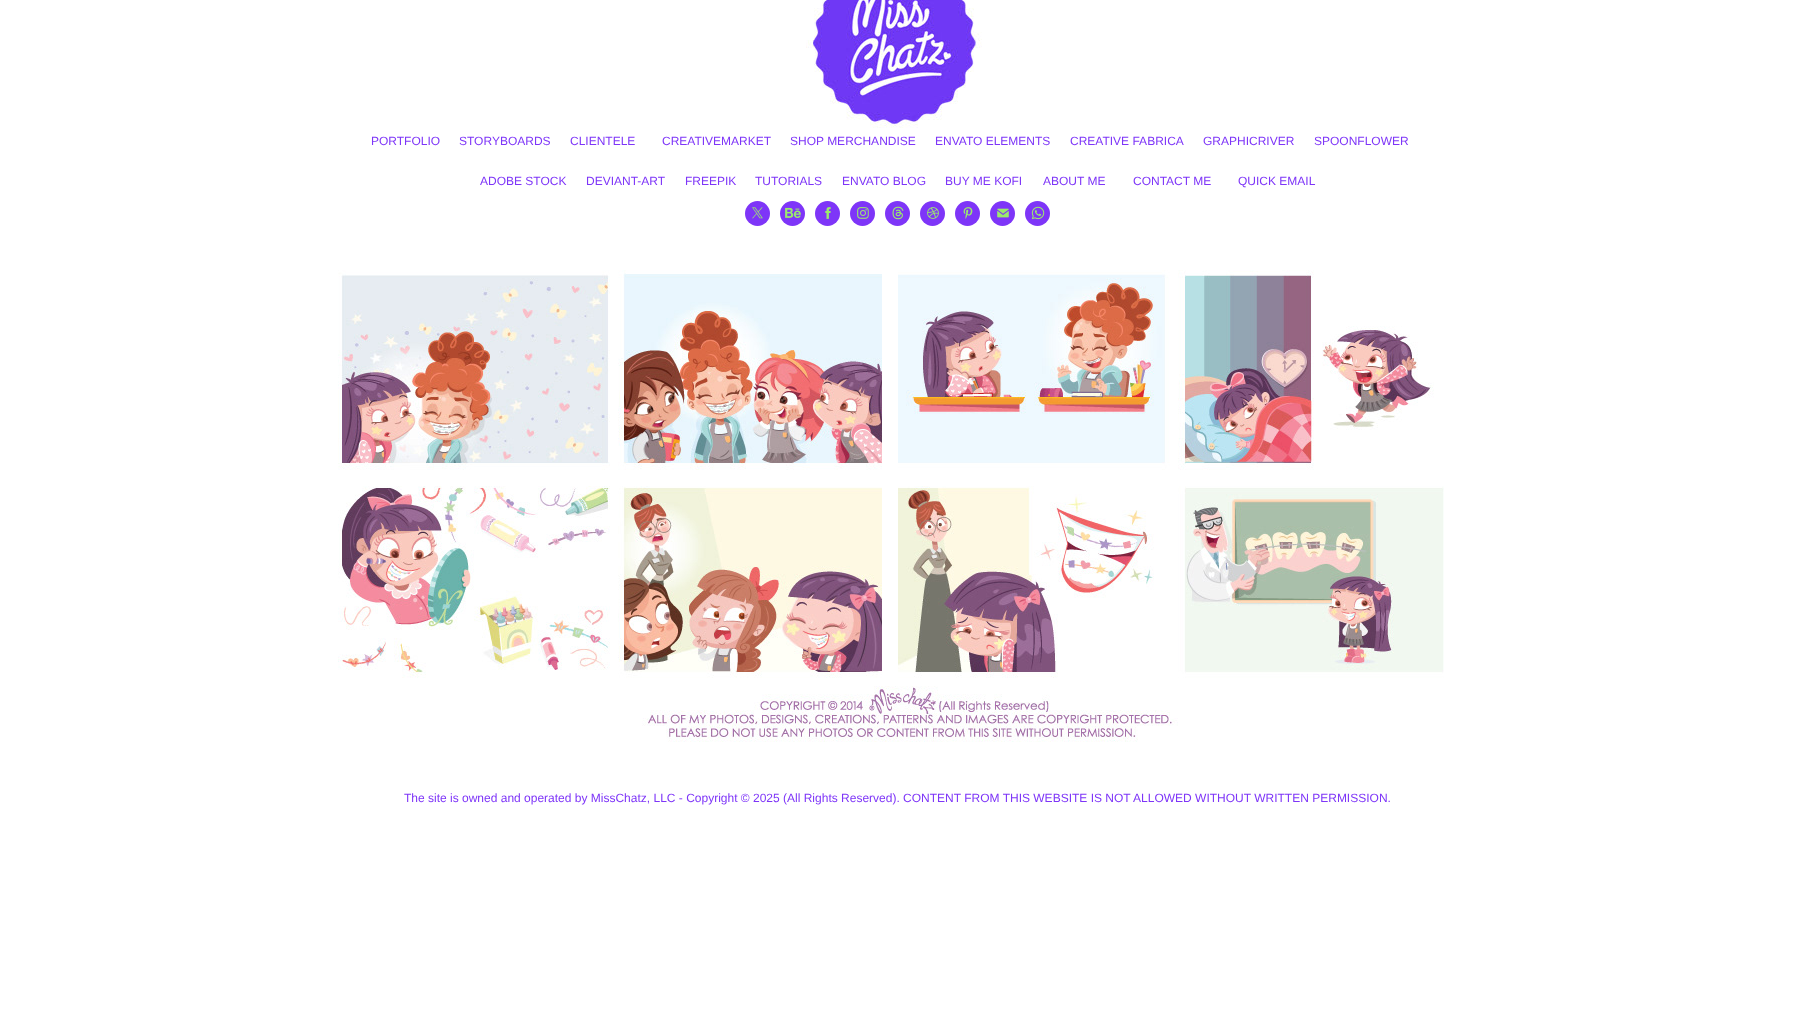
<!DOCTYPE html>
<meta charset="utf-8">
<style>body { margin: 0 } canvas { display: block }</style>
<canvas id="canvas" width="1795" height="1012"></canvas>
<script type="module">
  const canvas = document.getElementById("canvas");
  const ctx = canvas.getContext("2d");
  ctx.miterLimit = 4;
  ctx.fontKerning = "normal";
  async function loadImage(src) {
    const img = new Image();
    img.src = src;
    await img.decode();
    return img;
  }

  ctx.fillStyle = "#ffffff";
  ctx.fillRect(0, 0, 1795, 1012);
  ctx.drawImage(await loadImage("img1.png"), 806, 0, 176, 128);
  ctx.font = "12px Liberation Sans";
  ctx.fillStyle = "#7e35f8";
  ctx.fillText("PORTFOLIO", 371, 145);
  ctx.fillText("STORYBOARDS", 459, 145);
  ctx.fillText("CLIENTELE", 570, 145);
  ctx.fillText("CREATIVEMARKET", 662, 145);
  ctx.fillText("SHOP MERCHANDISE", 790, 145);
  ctx.fillText("ENVATO ELEMENTS", 935, 145);
  ctx.fillText("CREATIVE FABRICA", 1070, 145);
  ctx.fillText("GRAPHICRIVER", 1203, 145);
  ctx.fillText("SPOONFLOWER", 1314, 145);
  ctx.fillText("ADOBE STOCK", 480, 185);
  ctx.fillText("DEVIANT-ART", 586, 185);
  ctx.fillText("FREEPIK", 685, 185);
  ctx.fillText("TUTORIALS", 755, 185);
  ctx.fillText("ENVATO BLOG", 842, 185);
  ctx.fillText("BUY ME KOFI", 945, 185);
  ctx.fillText("ABOUT ME", 1043, 185);
  ctx.fillText("CONTACT ME", 1133, 185);
  ctx.fillText("QUICK EMAIL", 1238, 185);
  ctx.beginPath();
  ctx.arc(757.5, 213.5, 12.5, 0, Math.PI * 2);
  ctx.fill();
  ctx.drawImage(await loadImage("img2.png"), 752, 207, 11, 12);
  ctx.beginPath();
  ctx.arc(792.5, 213.5, 12.5, 0, Math.PI * 2);
  ctx.fill();
  ctx.drawImage(await loadImage("img3.png"), 785, 207, 16, 11);
  ctx.beginPath();
  ctx.arc(827.5, 213.5, 12.5, 0, Math.PI * 2);
  ctx.fill();
  ctx.drawImage(await loadImage("img4.png"), 825, 207, 6, 12);
  ctx.beginPath();
  ctx.arc(862.5, 213.5, 12.5, 0, Math.PI * 2);
  ctx.fill();
  ctx.drawImage(await loadImage("img5.png"), 857, 207, 12, 12);
  ctx.beginPath();
  ctx.arc(897.5, 213.5, 12.5, 0, Math.PI * 2);
  ctx.fill();
  ctx.drawImage(await loadImage("img6.png"), 892, 206, 12, 14);
  ctx.beginPath();
  ctx.arc(932.5, 213.5, 12.5, 0, Math.PI * 2);
  ctx.fill();
  ctx.drawImage(await loadImage("img7.png"), 927, 207, 12, 12);
  ctx.beginPath();
  ctx.arc(967.5, 213.5, 12.5, 0, Math.PI * 2);
  ctx.fill();
  ctx.drawImage(await loadImage("img8.png"), 963, 207, 10, 12);
  ctx.beginPath();
  ctx.arc(1002.5, 213.5, 12.5, 0, Math.PI * 2);
  ctx.fill();
  ctx.drawImage(await loadImage("img9.png"), 997, 208, 12, 10);
  ctx.beginPath();
  ctx.arc(1037.5, 213.5, 12.5, 0, Math.PI * 2);
  ctx.fill();
  ctx.drawImage(await loadImage("img10.png"), 1031, 206, 14, 14);
  ctx.drawImage(await loadImage("img11.png"), 338, 270, 1106, 472);
  ctx.fillText("The site is owned and operated by MissChatz, LLC - Copyright © 2025 (All Rights Reserved). CONTENT FROM THIS WEBSITE IS NOT ALLOWED WITHOUT WRITTEN PERMISSION.", 404, 802);
</script>
